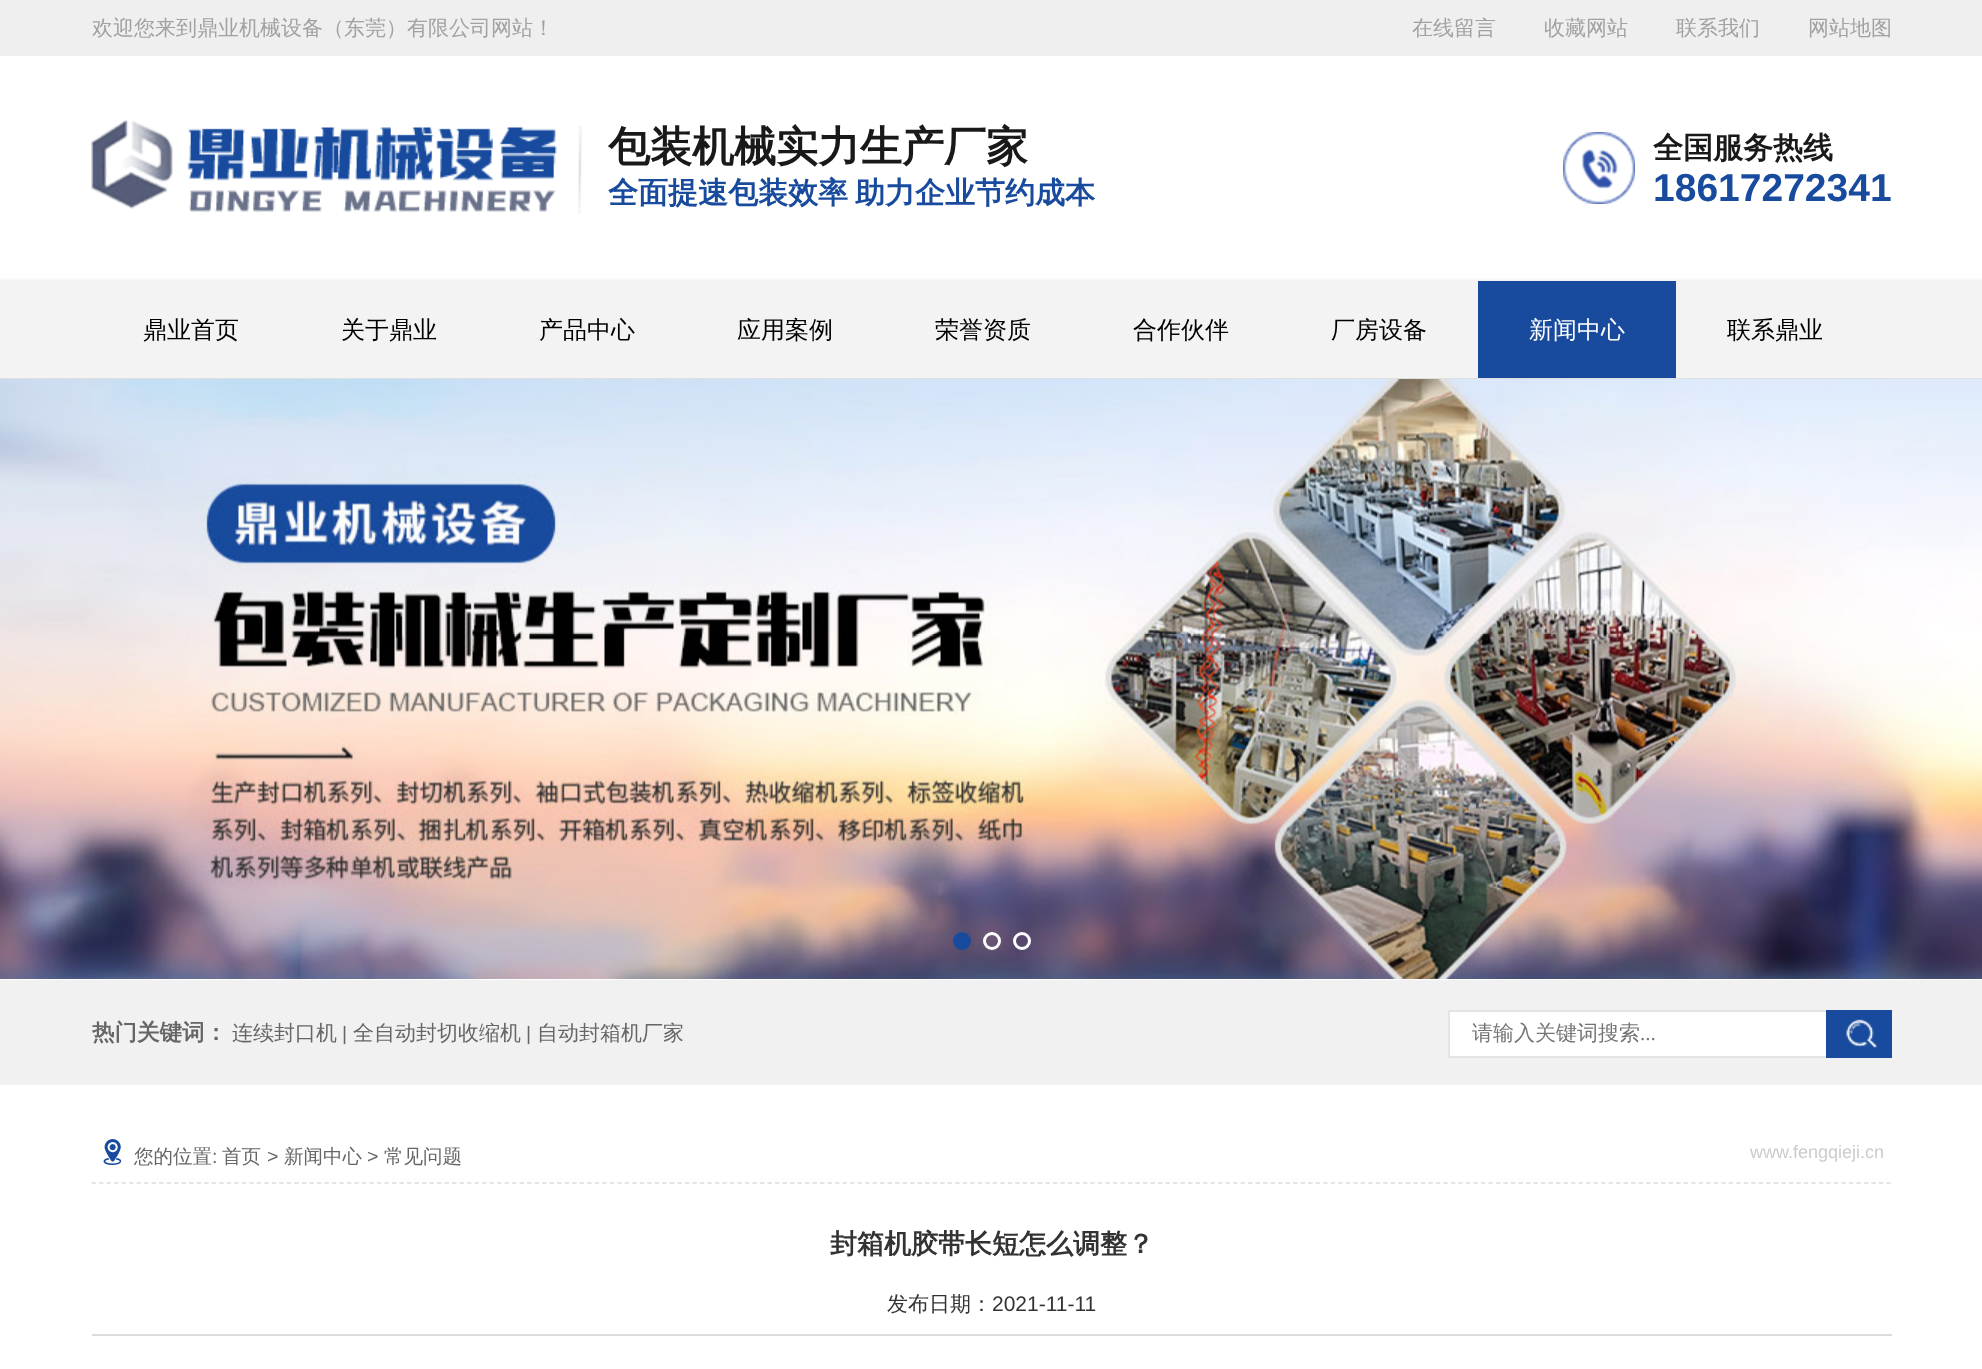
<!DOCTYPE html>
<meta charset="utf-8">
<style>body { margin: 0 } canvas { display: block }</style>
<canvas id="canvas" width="1982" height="1369"></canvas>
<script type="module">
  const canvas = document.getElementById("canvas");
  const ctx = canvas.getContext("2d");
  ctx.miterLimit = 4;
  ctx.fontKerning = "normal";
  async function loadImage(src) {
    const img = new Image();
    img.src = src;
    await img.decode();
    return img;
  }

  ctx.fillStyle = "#ffffff";
  ctx.fillRect(0, 0, 1982, 1369);
  ctx.fillStyle = "#efefef";
  ctx.fillRect(0, 0, 1982, 56);
  ctx.font = "500 21px WenQuanYi Zen Hei";
  ctx.fillStyle = "#a2a2a2";
  ctx.fillText("欢迎您来到鼎业机械设备（东莞）有限公司网站！", 92, 35);
  ctx.fillText("在线留言", 1412, 35);
  ctx.fillText("收藏网站", 1544, 35);
  ctx.fillText("联系我们", 1676, 35);
  ctx.fillText("网站地图", 1808, 35);
  ctx.drawImage(await loadImage("img1.png"), 91, 119, 466, 93);
  ctx.drawImage(await loadImage("img2.png"), 578, 125, 4, 89);
  ctx.font = "bold 42px WenQuanYi Zen Hei";
  ctx.fillStyle = "#191919";
  ctx.fillText("包装机械实力生产厂家", 608, 161);
  ctx.font = "bold 30px WenQuanYi Zen Hei";
  ctx.fillStyle = "#184b9e";
  ctx.fillText("全面提速包装效率", 608, 203);
  ctx.fillText("助力企业节约成本", 855, 203);
  ctx.drawImage(await loadImage("img3.png"), 1563, 132, 72, 72);
  ctx.fillStyle = "#191919";
  ctx.fillText("全国服务热线", 1653, 158);
  ctx.font = "bold 39px Liberation Sans";
  ctx.fillStyle = "#184b9e";
  ctx.fillText("18617272341", 1653, 201);
  ctx.fillStyle = "#dfdfdf";
  ctx.filter = "blur(2px)";
  ctx.beginPath();
  ctx.rect(0, 281, 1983, 99);
  ctx.fill();
  ctx.filter = "none";
  ctx.fillStyle = "#f3f3f3";
  ctx.fillRect(0, 281, 1982, 97);
  ctx.fillStyle = "#dfdfdf";
  ctx.fillRect(0, 378, 1982, 1);
  ctx.font = "500 24px WenQuanYi Zen Hei";
  ctx.fillStyle = "#000000";
  ctx.fillText("鼎业首页", 143, 338);
  ctx.fillText("关于鼎业", 341, 338);
  ctx.fillText("产品中心", 539, 338);
  ctx.fillText("应用案例", 737, 338);
  ctx.fillText("荣誉资质", 935, 338);
  ctx.fillText("合作伙伴", 1133, 338);
  ctx.fillText("厂房设备", 1331, 338);
  ctx.fillStyle = "#184b9e";
  ctx.fillRect(1478, 281, 198, 97);
  ctx.fillStyle = "#ffffff";
  ctx.fillText("新闻中心", 1529, 338);
  ctx.fillStyle = "#000000";
  ctx.fillText("联系鼎业", 1727, 338);
  ctx.drawImage(await loadImage("img4.png"), 0, 379, 1982, 600);
  ctx.fillStyle = "#184b9e";
  ctx.beginPath();
  ctx.arc(962, 941, 9, 0, Math.PI * 2);
  ctx.fill();
  ctx.beginPath();
  ctx.arc(992, 941, 7.5, 0, Math.PI * 2);
  ctx.strokeStyle = "#ffffff";
  ctx.lineWidth = 3;
  ctx.stroke();
  ctx.beginPath();
  ctx.arc(1022, 941, 7.5, 0, Math.PI * 2);
  ctx.stroke();
  ctx.fillStyle = "#f1f1f1";
  ctx.fillRect(0, 980, 1982, 105);
  ctx.font = "bold 22.5px WenQuanYi Zen Hei";
  ctx.fillStyle = "#666666";
  ctx.fillText("热门关键词：", 92, 1040);
  ctx.font = "500 21px WenQuanYi Zen Hei";
  ctx.fillText("连续封口机", 232, 1040);
  ctx.font = "19.5px Liberation Sans";
  ctx.fillText("|", 342, 1040);
  ctx.font = "500 21px WenQuanYi Zen Hei";
  ctx.fillText("全自动封切收缩机", 353, 1040);
  ctx.font = "19.5px Liberation Sans";
  ctx.fillText("|", 526, 1040);
  ctx.font = "500 21px WenQuanYi Zen Hei";
  ctx.fillText("自动封箱机厂家", 537, 1040);
  ctx.fillStyle = "#ffffff";
  ctx.fillRect(1450, 1012, 376, 44);
  ctx.fillStyle = "#e4e4e4";
  ctx.fillRect(1448, 1010, 378, 2);
  ctx.fillRect(1448, 1056, 378, 2);
  ctx.fillRect(1448, 1010, 2, 48);
  ctx.fillStyle = "#757575";
  ctx.fillText("请输入关键词搜索", 1472, 1040);
  ctx.font = "21px Liberation Serif";
  ctx.fillText("...", 1640, 1040);
  ctx.fillStyle = "#184b9e";
  ctx.fillRect(1826, 1010, 66, 48);
  ctx.drawImage(await loadImage("img5.png"), 1846, 1019, 31, 29);
  ctx.beginPath();
  ctx.moveTo(91.5, 1183);
  ctx.lineTo(1891.5, 1183);
  ctx.strokeStyle = "#dddddd";
  ctx.lineWidth = 1.5;
  ctx.setLineDash([4.5, 3.01]);
  ctx.stroke();
  ctx.drawImage(await loadImage("img6.png"), 103, 1139, 19, 26);
  ctx.font = "500 19.5px WenQuanYi Zen Hei";
  ctx.fillStyle = "#666666";
  ctx.fillText("您的位置", 134, 1163);
  ctx.font = "19.5px Liberation Sans";
  ctx.fillText(":", 212, 1163);
  ctx.font = "500 19.5px WenQuanYi Zen Hei";
  ctx.fillText("首页", 222, 1163);
  ctx.font = "19.5px Liberation Sans";
  ctx.fillText(">", 267, 1163);
  ctx.font = "500 19.5px WenQuanYi Zen Hei";
  ctx.fillText("新闻中心", 284, 1163);
  ctx.font = "19.5px Liberation Sans";
  ctx.fillText(">", 367, 1163);
  ctx.font = "500 19.5px WenQuanYi Zen Hei";
  ctx.fillText("常见问题", 384, 1163);
  ctx.font = "18px Liberation Sans";
  ctx.fillStyle = "#cccccc";
  ctx.fillText("www.fengqieji.cn", 1750, 1158);
  ctx.fillStyle = "#dcdcdc";
  ctx.fillRect(92, 1334, 1800, 2);
  ctx.font = "bold 27px WenQuanYi Zen Hei";
  ctx.fillStyle = "#333333";
  ctx.fillText("封箱机胶带长短怎么调整？", 830, 1253);
  ctx.font = "500 21px WenQuanYi Zen Hei";
  ctx.fillText("发布日期：", 887, 1311);
  ctx.font = "21px Liberation Sans";
  ctx.fillText("2021-11-11", 992, 1311);
</script>
